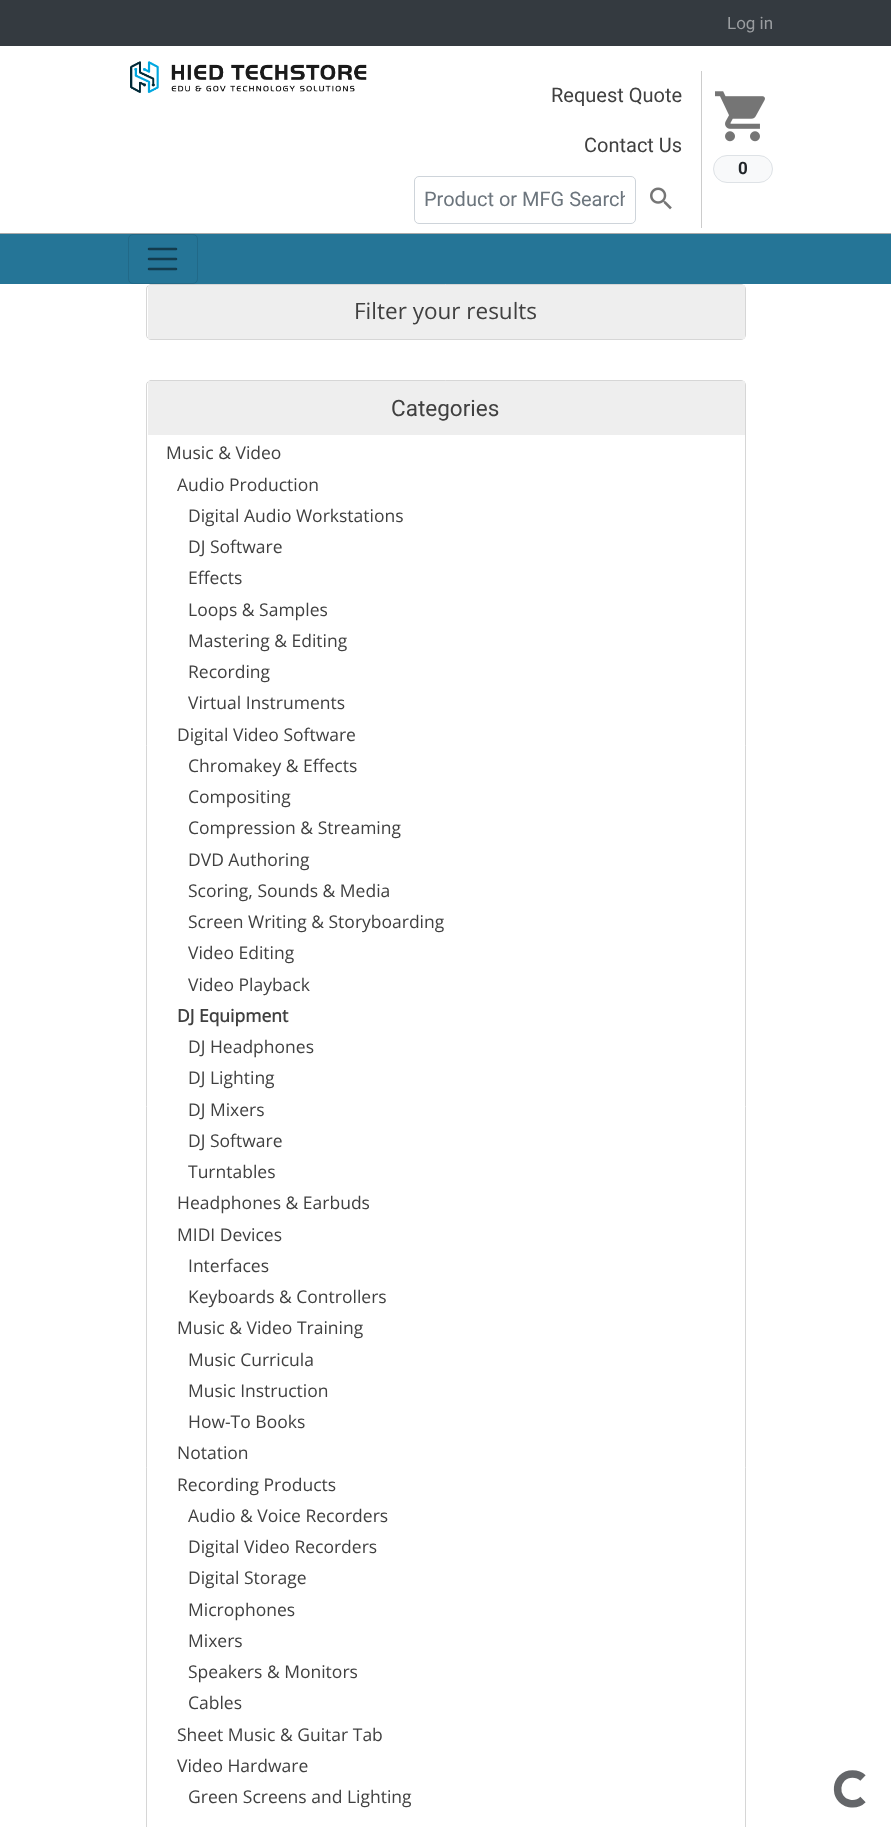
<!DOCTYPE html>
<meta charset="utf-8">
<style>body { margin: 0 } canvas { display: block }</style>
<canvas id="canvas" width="891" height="1827"></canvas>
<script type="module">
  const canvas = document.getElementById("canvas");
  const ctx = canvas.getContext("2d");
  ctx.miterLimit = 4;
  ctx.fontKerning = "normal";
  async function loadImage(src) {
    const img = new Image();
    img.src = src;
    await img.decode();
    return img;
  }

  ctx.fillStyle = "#ffffff";
  ctx.fillRect(0, 0, 891, 1827);
  ctx.fillStyle = "#343a40";
  ctx.fillRect(0, 0, 891, 46);
  ctx.font = "17px Roboto";
  ctx.fillStyle = "#9a9da0";
  ctx.fillText("Log in", 727, 29);
  ctx.drawImage(await loadImage("img1.png"), 130, 61, 237, 32);
  ctx.fillStyle = "#cccccc";
  ctx.fillRect(701, 71, 1, 157);
  ctx.font = "20px Roboto";
  ctx.fillStyle = "#404040";
  ctx.fillText("Request Quote", 551, 102);
  ctx.fillText("Contact Us", 584, 152);
  ctx.beginPath();
  ctx.roundRect(414.5, 176.5, 221, 47, 4.5);
  ctx.strokeStyle = "#ced4da";
  ctx.stroke();
  ctx.save();
  ctx.beginPath();
  ctx.rect(425, 188, 200, 23);
  ctx.clip();
  ctx.fillStyle = "#6c757d";
  ctx.fillText("Product or MFG Search", 424, 206);
  ctx.restore();
  ctx.drawImage(await loadImage("img2.png"), 650, 187, 22, 23);
  ctx.drawImage(await loadImage("img3.png"), 715, 91, 50, 51);
  ctx.fillStyle = "#f8f9fa";
  ctx.beginPath();
  ctx.roundRect(713.5, 155.5, 59, 27, 13.5);
  ctx.fill();
  ctx.strokeStyle = "#dee2e6";
  ctx.stroke();
  ctx.font = "bold 17px Roboto";
  ctx.fillStyle = "#212529";
  ctx.fillText("0", 738, 174);
  ctx.fillStyle = "#257597";
  ctx.fillRect(0, 234, 891, 50);
  ctx.fillStyle = "#aaaaaa";
  ctx.fillRect(0, 233, 891, 1);
  ctx.beginPath();
  ctx.roundRect(128.5, 234.5, 69, 49, 4.5);
  ctx.strokeStyle = "#216988";
  ctx.stroke();
  ctx.beginPath();
  ctx.moveTo(149, 249);
  ctx.lineTo(176, 249);
  ctx.moveTo(149, 259);
  ctx.lineTo(176, 259);
  ctx.moveTo(149, 269);
  ctx.lineTo(176, 269);
  ctx.strokeStyle = "#133b4c";
  ctx.lineWidth = 2.5;
  ctx.lineCap = "round";
  ctx.stroke();
  ctx.beginPath();
  ctx.roundRect(146.5, 284.5, 599, 55, 4.5);
  ctx.strokeStyle = "#d6d6d6";
  ctx.lineWidth = 1;
  ctx.stroke();
  ctx.fillStyle = "#eeeeee";
  ctx.fillRect(148, 285, 597, 54);
  ctx.font = "22.5px Open Sans";
  ctx.fillStyle = "#404040";
  ctx.fillText("Filter your results", 354, 319);
  ctx.beginPath();
  ctx.roundRect(146.5, 380.5, 599, 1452, 4.5);
  ctx.stroke();
  ctx.fillStyle = "#eeeeee";
  ctx.fillRect(148, 381, 597, 54);
  ctx.font = "22.5px Roboto";
  ctx.fillStyle = "#404040";
  ctx.fillText("Categories", 391, 416);
  ctx.font = "17.5px Open Sans";
  ctx.fillText("Music & Video", 166, 459);
  ctx.fillText("Audio Production", 177, 491);
  ctx.fillText("Digital Audio Workstations", 188, 522);
  ctx.fillText("DJ Software", 188, 553);
  ctx.fillText("Effects", 188, 584);
  ctx.fillText("Loops & Samples", 188, 616);
  ctx.fillText("Mastering & Editing", 188, 647);
  ctx.fillText("Recording", 188, 678);
  ctx.fillText("Virtual Instruments", 188, 709);
  ctx.fillText("Digital Video Software", 177, 741);
  ctx.fillText("Chromakey & Effects", 188, 772);
  ctx.fillText("Compositing", 188, 803);
  ctx.fillText("Compression & Streaming", 188, 834);
  ctx.fillText("DVD Authoring", 188, 866);
  ctx.fillText("Scoring, Sounds & Media", 188, 897);
  ctx.fillText("Screen Writing & Storyboarding", 188, 928);
  ctx.fillText("Video Editing", 188, 959);
  ctx.fillText("Video Playback", 188, 991);
  ctx.font = "bold 17.5px Open Sans";
  ctx.fillText("DJ Equipment", 177, 1022);
  ctx.font = "17.5px Open Sans";
  ctx.fillText("DJ Headphones", 188, 1053);
  ctx.fillText("DJ Lighting", 188, 1084);
  ctx.fillText("DJ Mixers", 188, 1116);
  ctx.fillText("DJ Software", 188, 1147);
  ctx.fillText("Turntables", 188, 1178);
  ctx.fillText("Headphones & Earbuds", 177, 1209);
  ctx.fillText("MIDI Devices", 177, 1241);
  ctx.fillText("Interfaces", 188, 1272);
  ctx.fillText("Keyboards & Controllers", 188, 1303);
  ctx.fillText("Music & Video Training", 177, 1334);
  ctx.fillText("Music Curricula", 188, 1366);
  ctx.fillText("Music Instruction", 188, 1397);
  ctx.fillText("How-To Books", 188, 1428);
  ctx.fillText("Notation", 177, 1459);
  ctx.fillText("Recording Products", 177, 1491);
  ctx.fillText("Audio & Voice Recorders", 188, 1522);
  ctx.fillText("Digital Video Recorders", 188, 1553);
  ctx.fillText("Digital Storage", 188, 1584);
  ctx.fillText("Microphones", 188, 1616);
  ctx.fillText("Mixers", 188, 1647);
  ctx.fillText("Speakers & Monitors", 188, 1678);
  ctx.fillText("Cables", 188, 1709);
  ctx.fillText("Sheet Music & Guitar Tab", 177, 1741);
  ctx.fillText("Video Hardware", 177, 1772);
  ctx.fillText("Green Screens and Lighting", 188, 1803);
  ctx.beginPath();
  ctx.moveTo(863, 1799.5);
  ctx.bezierCurveTo(859.5, 1803, 854.5, 1804.5, 849.5, 1803.5);
  ctx.bezierCurveTo(832, 1800, 834.5, 1774, 852.5, 1774);
  ctx.bezierCurveTo(856.5, 1774, 860.5, 1775.5, 863, 1778);
  ctx.strokeStyle = "#646669";
  ctx.lineWidth = 7.5;
  ctx.lineCap = "butt";
  ctx.stroke();
</script>
